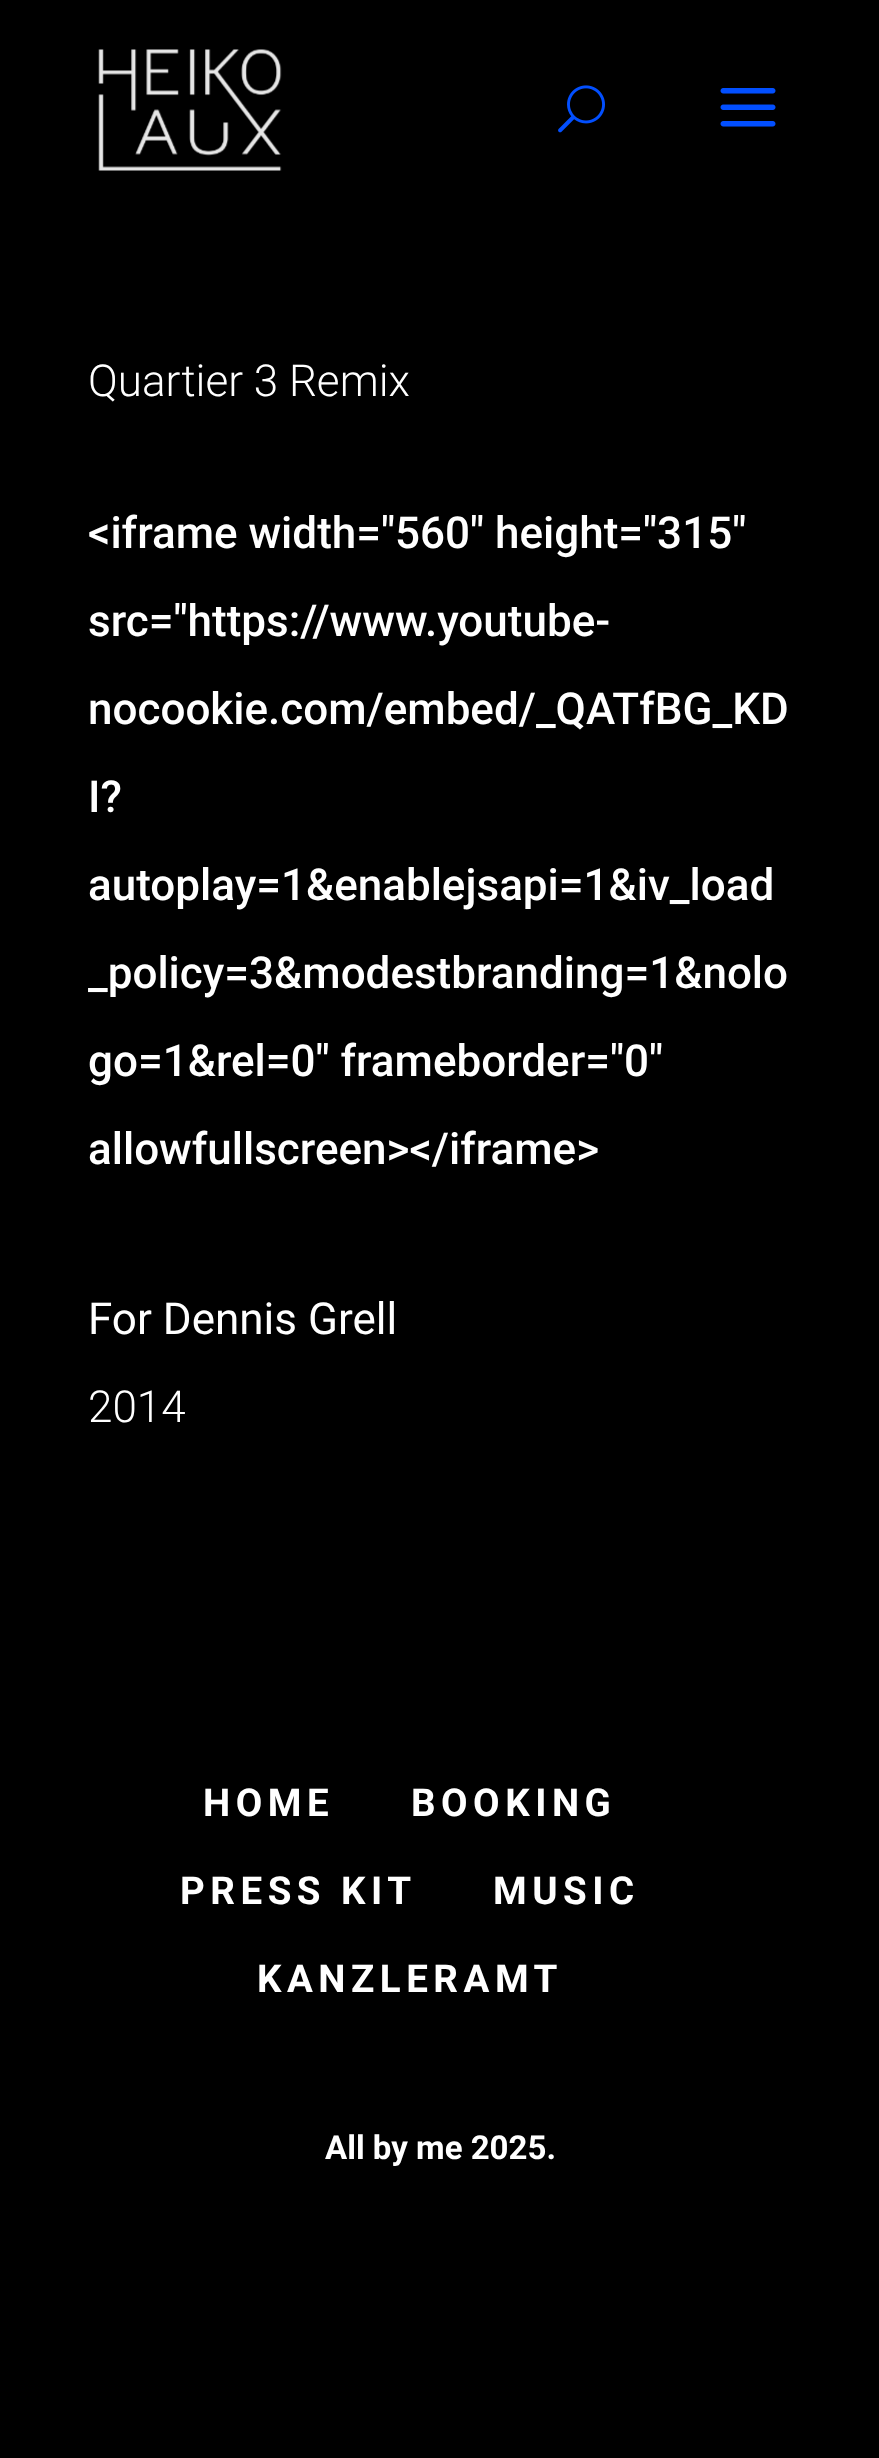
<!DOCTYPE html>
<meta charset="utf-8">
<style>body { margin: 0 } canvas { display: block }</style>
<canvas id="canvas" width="879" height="2458"></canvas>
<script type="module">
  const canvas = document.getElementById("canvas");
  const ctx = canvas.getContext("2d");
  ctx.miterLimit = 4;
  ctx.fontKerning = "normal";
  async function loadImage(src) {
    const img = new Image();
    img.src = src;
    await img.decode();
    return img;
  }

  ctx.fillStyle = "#000000";
  ctx.fillRect(0, 0, 879, 2458);
  ctx.drawImage(await loadImage("img1.png"), 98, 49, 184, 122);
  ctx.drawImage(await loadImage("img2.png"), 558, 85, 47, 48);
  ctx.drawImage(await loadImage("img3.png"), 720, 88, 56, 39);
  ctx.font = "300 44px Roboto";
  ctx.fillStyle = "#ffffff";
  ctx.fillText("Quartier 3 Remix", 88, 396);
  ctx.font = "500 44px Roboto";
  ctx.fillText("<iframe width=\"560\" height=\"315\"", 88, 548);
  ctx.fillText("src=\"https://www.youtube-", 88, 636);
  ctx.fillText("nocookie.com/embed/_QATfBG_KD", 88, 724);
  ctx.fillText("I?", 88, 812);
  ctx.fillText("autoplay=1&enablejsapi=1&iv_load", 88, 900);
  ctx.fillText("_policy=3&modestbranding=1&nolo", 88, 988);
  ctx.fillText("go=1&rel=0\" frameborder=\"0\"", 88, 1076);
  ctx.fillText("allowfullscreen><\/iframe>", 88, 1164);
  ctx.font = "44px Roboto";
  ctx.fillText("For Dennis Grell", 88, 1334);
  ctx.font = "300 44px Roboto";
  ctx.fillText("2014", 88, 1422);
  ctx.letterSpacing = "5.5px";
  ctx.font = "bold 38.5px Roboto";
  ctx.fillText("HOME", 203, 1816);
  ctx.fillText("BOOKING", 411, 1816);
  ctx.fillText("PRESS KIT", 180, 1904);
  ctx.fillText("MUSIC", 493, 1904);
  ctx.fillText("KANZLERAMT", 257, 1992);
  ctx.letterSpacing = "0px";
  ctx.font = "bold 33px Roboto";
  ctx.fillText("All by me 2025.", 325, 2159);
</script>
